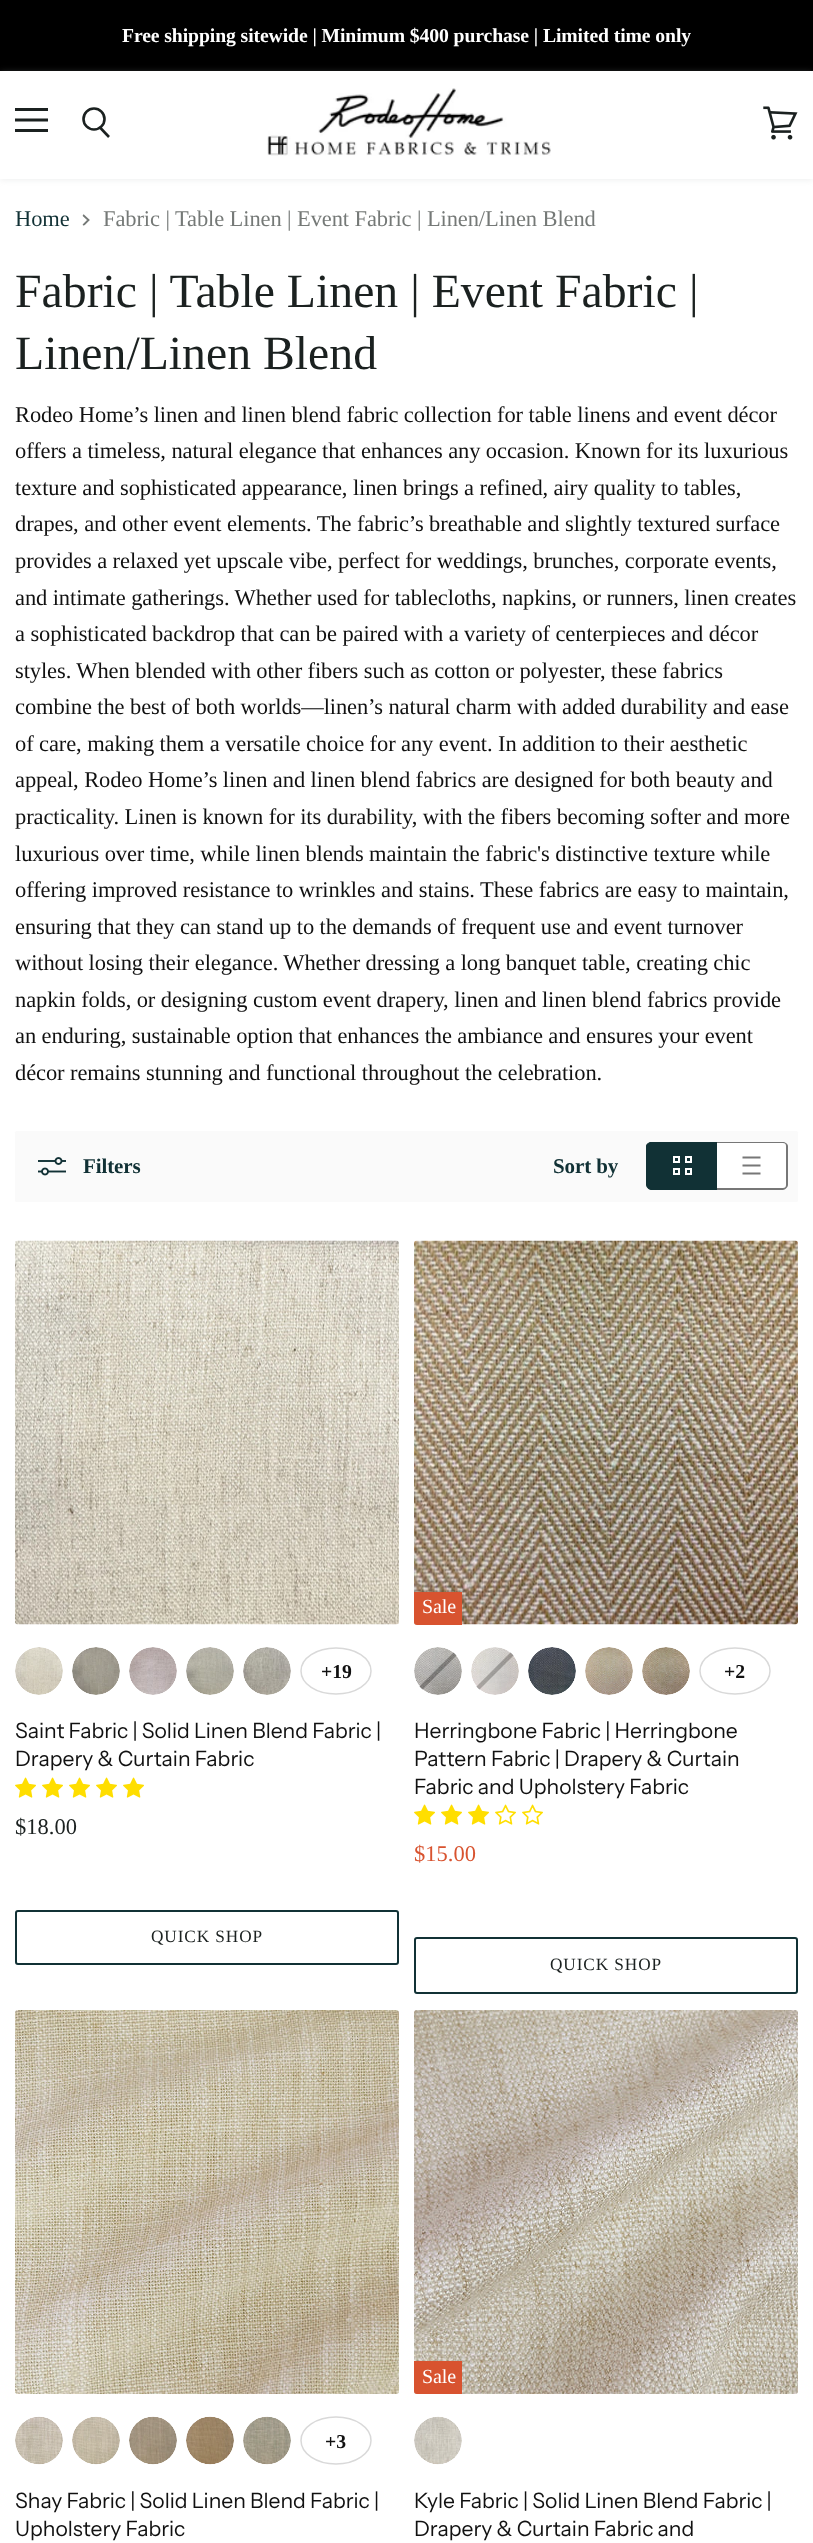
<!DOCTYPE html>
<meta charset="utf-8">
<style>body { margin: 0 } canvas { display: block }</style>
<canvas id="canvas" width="813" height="2543"></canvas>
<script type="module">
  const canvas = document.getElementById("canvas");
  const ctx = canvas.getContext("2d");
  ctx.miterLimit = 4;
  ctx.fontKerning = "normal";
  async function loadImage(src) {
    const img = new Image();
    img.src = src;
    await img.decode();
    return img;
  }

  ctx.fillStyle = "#ffffff";
  ctx.fillRect(0, 0, 813, 2543);
  ctx.fillStyle = "#000000";
  ctx.fillRect(0, 0, 813, 71);
  ctx.letterSpacing = "-0.1px";
  ctx.font = "bold 19.7px Liberation Serif";
  ctx.fillStyle = "#ffffff";
  ctx.fillText("Free shipping sitewide | Minimum $400 purchase | Limited time only", 122, 42);
  ctx.fillStyle = "rgba(186, 192, 190, 0.25)";
  ctx.filter = "blur(3px)";
  ctx.beginPath();
  ctx.rect(0, 72, 813, 108);
  ctx.fill();
  ctx.filter = "none";
  ctx.fillStyle = "#ffffff";
  ctx.fillRect(0, 71, 813, 108);
  ctx.drawImage(await loadImage("img1.png"), 267, 88, 284, 68);
  ctx.fillStyle = "#1b2120";
  ctx.fillRect(15, 108, 33, 3);
  ctx.beginPath();
  ctx.moveTo(46.5, 120);
  ctx.lineTo(16.5, 120);
  ctx.strokeStyle = "#1b2120";
  ctx.lineWidth = 3;
  ctx.lineCap = "square";
  ctx.lineJoin = "round";
  ctx.stroke();
  ctx.fillRect(15, 129, 33, 3);
  ctx.beginPath();
  ctx.moveTo(109, 137);
  ctx.lineTo(100, 127.5);
  ctx.lineWidth = 2.6;
  ctx.lineCap = "butt";
  ctx.lineJoin = "miter";
  ctx.stroke();
  ctx.beginPath();
  ctx.arc(94, 119, 10.5, 0, Math.PI * 2);
  ctx.stroke();
  ctx.drawImage(await loadImage("img2.png"), 763, 106, 35, 34);
  ctx.font = "22.5px Liberation Serif";
  ctx.fillStyle = "#113135";
  ctx.fillText("Home", 15, 226);
  ctx.save();
  ctx.beginPath();
  ctx.moveTo(82.5, 225.5);
  ctx.lineTo(82.5, 213.5);
  ctx.lineTo(90, 213.5);
  ctx.lineTo(90, 225.5);
  ctx.closePath();
  ctx.clip();
  ctx.beginPath();
  ctx.moveTo(83, 225.5);
  ctx.lineTo(88.5, 220);
  ctx.lineTo(83, 215);
  ctx.strokeStyle = "#757977";
  ctx.lineWidth = 1.9;
  ctx.stroke();
  ctx.restore();
  ctx.fillStyle = "#757977";
  ctx.fillText("Fabric | Table Linen | Event Fabric | Linen/Linen Blend", 103, 226);
  ctx.letterSpacing = "0px";
  ctx.font = "47.75px Liberation Serif";
  ctx.fillStyle = "#1b2120";
  ctx.fillText("Fabric | Table Linen | Event Fabric |", 15, 307);
  ctx.fillText("Linen/Linen Blend", 15, 369);
  ctx.letterSpacing = "-0.1px";
  ctx.font = "22.5px Liberation Serif";
  ctx.fillStyle = "#111111";
  ctx.fillText("Rodeo Home’s linen and linen blend fabric collection for table linens and event décor", 15, 422);
  ctx.fillText("offers a timeless, natural elegance that enhances any occasion. Known for its luxurious", 15, 458);
  ctx.fillText("texture and sophisticated appearance, linen brings a refined, airy quality to tables,", 15, 495);
  ctx.fillText("drapes, and other event elements. The fabric’s breathable and slightly textured surface", 15, 531);
  ctx.fillText("provides a relaxed yet upscale vibe, perfect for weddings, brunches, corporate events,", 15, 568);
  ctx.fillText("and intimate gatherings. Whether used for tablecloths, napkins, or runners, linen creates", 15, 605);
  ctx.fillText("a sophisticated backdrop that can be paired with a variety of centerpieces and décor", 15, 641);
  ctx.fillText("styles. When blended with other fibers such as cotton or polyester, these fabrics", 15, 678);
  ctx.fillText("combine the best of both worlds—linen’s natural charm with added durability and ease", 15, 714);
  ctx.fillText("of care, making them a versatile choice for any event. In addition to their aesthetic", 15, 751);
  ctx.fillText("appeal, Rodeo Home’s linen and linen blend fabrics are designed for both beauty and", 15, 787);
  ctx.fillText("practicality. Linen is known for its durability, with the fibers becoming softer and more", 15, 824);
  ctx.fillText("luxurious over time, while linen blends maintain the fabric's distinctive texture while", 15, 861);
  ctx.fillText("offering improved resistance to wrinkles and stains. These fabrics are easy to maintain,", 15, 897);
  ctx.fillText("ensuring that they can stand up to the demands of frequent use and event turnover", 15, 934);
  ctx.fillText("without losing their elegance. Whether dressing a long banquet table, creating chic", 15, 970);
  ctx.fillText("napkin folds, or designing custom event drapery, linen and linen blend fabrics provide", 15, 1007);
  ctx.fillText("an enduring, sustainable option that enhances the ambiance and ensures your event", 15, 1043);
  ctx.fillText("décor remains stunning and functional throughout the celebration.", 15, 1080);
  ctx.fillStyle = "#fafafa";
  ctx.beginPath();
  ctx.roundRect(15, 1131, 783, 71, 1.5);
  ctx.fill();
  ctx.drawImage(await loadImage("img3.png"), 38, 1157, 28, 19);
  ctx.font = "bold 21px Liberation Serif";
  ctx.fillStyle = "#113135";
  ctx.fillText("Filters", 83, 1173);
  ctx.fillText("Sort by", 553, 1173);
  ctx.beginPath();
  ctx.roundRect(647, 1142, 70, 48, [5, 0, 0, 5]);
  ctx.fill();
  ctx.beginPath();
  ctx.moveTo(651, 1142);
  ctx.lineTo(717, 1142);
  ctx.lineTo(717, 1190);
  ctx.lineTo(651, 1190);
  ctx.bezierCurveTo(649, 1190, 646, 1187, 646, 1185);
  ctx.lineTo(646, 1146);
  ctx.bezierCurveTo(646, 1144, 649, 1142, 651, 1142);
  ctx.closePath();
  ctx.moveTo(651, 1143);
  ctx.lineTo(717, 1143);
  ctx.lineTo(717, 1188);
  ctx.lineTo(651, 1188);
  ctx.bezierCurveTo(649, 1188, 648, 1187, 648, 1185);
  ctx.lineTo(648, 1146);
  ctx.bezierCurveTo(648, 1144, 649, 1143, 651, 1143);
  ctx.closePath();
  ctx.fill("evenodd");
  ctx.strokeStyle = "#ffffff";
  ctx.lineWidth = 2;
  ctx.strokeRect(674, 1157, 5, 5);
  ctx.strokeRect(686, 1157, 5, 5);
  ctx.strokeRect(674, 1169, 5, 5);
  ctx.strokeRect(686, 1169, 5, 5);
  ctx.fillStyle = "#ffffff";
  ctx.beginPath();
  ctx.roundRect(717, 1142, 71, 48, [0, 5, 5, 0]);
  ctx.fill();
  ctx.fillStyle = "#777777";
  ctx.beginPath();
  ctx.moveTo(717, 1142);
  ctx.lineTo(783, 1142);
  ctx.bezierCurveTo(785, 1142, 788, 1144, 788, 1146);
  ctx.lineTo(788, 1185);
  ctx.bezierCurveTo(788, 1187, 785, 1190, 783, 1190);
  ctx.lineTo(717, 1190);
  ctx.closePath();
  ctx.moveTo(717, 1143);
  ctx.lineTo(783, 1143);
  ctx.bezierCurveTo(785, 1143, 786, 1144, 786, 1146);
  ctx.lineTo(786, 1185);
  ctx.bezierCurveTo(786, 1187, 785, 1188, 783, 1188);
  ctx.lineTo(717, 1188);
  ctx.closePath();
  ctx.fill("evenodd");
  ctx.beginPath();
  ctx.moveTo(742.5, 1157.5);
  ctx.lineTo(760.5, 1157.5);
  ctx.moveTo(742.5, 1173.5);
  ctx.lineTo(760.5, 1173.5);
  ctx.moveTo(742.5, 1165.5);
  ctx.lineTo(760.5, 1165.5);
  ctx.strokeStyle = "#777777";
  ctx.lineWidth = 1.9;
  ctx.lineJoin = "round";
  ctx.stroke();
  ctx.drawImage(await loadImage("img4.png"), 15, 1240, 384, 385);
  ctx.drawImage(await loadImage("img5.png"), 15, 1647, 48, 48);
  ctx.drawImage(await loadImage("img6.png"), 72, 1647, 48, 48);
  ctx.drawImage(await loadImage("img7.png"), 129, 1647, 48, 48);
  ctx.drawImage(await loadImage("img8.png"), 186, 1647, 48, 48);
  ctx.drawImage(await loadImage("img9.png"), 243, 1647, 48, 48);
  ctx.beginPath();
  ctx.moveTo(336, 1648);
  ctx.bezierCurveTo(355.5, 1648, 371, 1658, 371, 1671);
  ctx.bezierCurveTo(371, 1684, 355.5, 1694, 336, 1694);
  ctx.bezierCurveTo(316.5, 1694, 301, 1684, 301, 1671);
  ctx.bezierCurveTo(301, 1658, 316.5, 1648, 336, 1648);
  ctx.closePath();
  ctx.strokeStyle = "#d9d9d9";
  ctx.lineWidth = 1.5;
  ctx.lineJoin = "miter";
  ctx.stroke();
  ctx.letterSpacing = "0px";
  ctx.font = "bold 19.7px Liberation Serif";
  ctx.fillStyle = "#111111";
  ctx.fillText("+19", 321, 1678);
  ctx.font = "21.1px Instrument Sans";
  ctx.fillText("Saint Fabric | Solid Linen Blend Fabric |", 15, 1738);
  ctx.fillText("Drapery & Curtain Fabric", 15, 1766);
  ctx.drawImage(await loadImage("img10.png"), 15, 1777, 21, 21);
  ctx.drawImage(await loadImage("img10.png"), 42, 1777, 21, 21);
  ctx.drawImage(await loadImage("img10.png"), 69, 1777, 21, 21);
  ctx.drawImage(await loadImage("img10.png"), 96, 1777, 21, 21);
  ctx.drawImage(await loadImage("img10.png"), 123, 1777, 21, 21);
  ctx.font = "22.5px Liberation Serif";
  ctx.fillStyle = "#1b2120";
  ctx.fillText("$18.00", 15, 1834);
  ctx.beginPath();
  ctx.roundRect(16, 1911, 382, 53, 2);
  ctx.strokeStyle = "#113135";
  ctx.lineWidth = 2;
  ctx.stroke();
  ctx.letterSpacing = "0.9px";
  ctx.font = "17.25px Liberation Serif";
  ctx.fillText("QUICK SHOP", 151, 1942);
  ctx.drawImage(await loadImage("img11.png"), 414, 1240, 384, 385);
  ctx.fillStyle = "#d8532f";
  ctx.beginPath();
  ctx.roundRect(414, 1592, 48, 33, [0, 0, 0, 3]);
  ctx.fill();
  ctx.letterSpacing = "-0.1px";
  ctx.font = "20px Liberation Serif";
  ctx.fillStyle = "#ffffff";
  ctx.fillText("Sale", 422, 1613);
  ctx.fillStyle = "#808080";
  ctx.beginPath();
  ctx.moveTo(456.5, 1655.5);
  ctx.lineTo(453.5, 1652.5);
  ctx.lineTo(419.5, 1686.5);
  ctx.lineTo(422.5, 1689.5);
  ctx.closePath();
  ctx.fill();
  ctx.drawImage(await loadImage("img12.png"), 414, 1647, 48, 48);
  ctx.beginPath();
  ctx.moveTo(513.5, 1655.5);
  ctx.lineTo(510.5, 1652.5);
  ctx.lineTo(476.5, 1686.5);
  ctx.lineTo(479.5, 1689.5);
  ctx.closePath();
  ctx.fill();
  ctx.drawImage(await loadImage("img13.png"), 471, 1647, 48, 48);
  ctx.drawImage(await loadImage("img14.png"), 528, 1647, 48, 48);
  ctx.drawImage(await loadImage("img15.png"), 585, 1647, 48, 48);
  ctx.drawImage(await loadImage("img16.png"), 642, 1647, 48, 48);
  ctx.beginPath();
  ctx.moveTo(735, 1648);
  ctx.bezierCurveTo(754.5, 1648, 770, 1658, 770, 1671);
  ctx.bezierCurveTo(770, 1684, 754.5, 1694, 735, 1694);
  ctx.bezierCurveTo(715.5, 1694, 700, 1684, 700, 1671);
  ctx.bezierCurveTo(700, 1658, 715.5, 1648, 735, 1648);
  ctx.closePath();
  ctx.strokeStyle = "#d9d9d9";
  ctx.lineWidth = 1.5;
  ctx.stroke();
  ctx.letterSpacing = "0px";
  ctx.font = "bold 19.7px Liberation Serif";
  ctx.fillStyle = "#111111";
  ctx.fillText("+2", 724, 1678);
  ctx.font = "21.1px Instrument Sans";
  ctx.fillText("Herringbone Fabric | Herringbone", 414, 1738);
  ctx.fillText("Pattern Fabric | Drapery & Curtain", 414, 1766);
  ctx.fillText("Fabric and Upholstery Fabric", 414, 1794);
  ctx.drawImage(await loadImage("img10.png"), 414, 1804, 21, 21);
  ctx.drawImage(await loadImage("img10.png"), 441, 1804, 21, 21);
  ctx.drawImage(await loadImage("img10.png"), 468, 1804, 21, 21);
  ctx.drawImage(await loadImage("img17.png"), 495, 1804, 21, 21);
  ctx.drawImage(await loadImage("img17.png"), 522, 1804, 21, 21);
  ctx.font = "22.5px Liberation Serif";
  ctx.fillStyle = "#d8532f";
  ctx.fillText("$15.00", 414, 1861);
  ctx.beginPath();
  ctx.roundRect(415, 1938, 382, 55, 2);
  ctx.strokeStyle = "#113135";
  ctx.lineWidth = 2;
  ctx.stroke();
  ctx.letterSpacing = "0.9px";
  ctx.font = "17.25px Liberation Serif";
  ctx.fillStyle = "#1b2120";
  ctx.fillText("QUICK SHOP", 550, 1970);
  ctx.drawImage(await loadImage("img18.png"), 15, 2010, 384, 384);
  ctx.drawImage(await loadImage("img19.png"), 15, 2416, 48, 49);
  ctx.drawImage(await loadImage("img20.png"), 72, 2416, 48, 49);
  ctx.drawImage(await loadImage("img21.png"), 129, 2416, 48, 49);
  ctx.drawImage(await loadImage("img22.png"), 186, 2416, 48, 49);
  ctx.drawImage(await loadImage("img23.png"), 243, 2416, 48, 49);
  ctx.beginPath();
  ctx.moveTo(336, 2417);
  ctx.bezierCurveTo(355.5, 2417, 371, 2427.5, 371, 2440.5);
  ctx.bezierCurveTo(371, 2453.5, 355.5, 2464, 336, 2464);
  ctx.bezierCurveTo(316.5, 2464, 301, 2453.5, 301, 2440.5);
  ctx.bezierCurveTo(301, 2427.5, 316.5, 2417, 336, 2417);
  ctx.closePath();
  ctx.strokeStyle = "#d9d9d9";
  ctx.lineWidth = 1.5;
  ctx.stroke();
  ctx.letterSpacing = "0px";
  ctx.font = "bold 19.7px Liberation Serif";
  ctx.fillStyle = "#111111";
  ctx.fillText("+3", 325, 2448);
  ctx.font = "21.1px Instrument Sans";
  ctx.fillText("Shay Fabric | Solid Linen Blend Fabric |", 15, 2508);
  ctx.fillText("Upholstery Fabric", 15, 2536);
  ctx.drawImage(await loadImage("img24.png"), 414, 2010, 384, 384);
  ctx.fillStyle = "#d8532f";
  ctx.beginPath();
  ctx.roundRect(414, 2361, 48, 33, [0, 0, 0, 3]);
  ctx.fill();
  ctx.letterSpacing = "-0.1px";
  ctx.font = "20px Liberation Serif";
  ctx.fillStyle = "#ffffff";
  ctx.fillText("Sale", 422, 2383);
  ctx.drawImage(await loadImage("img25.png"), 414, 2416, 48, 49);
  ctx.letterSpacing = "0px";
  ctx.font = "21.1px Instrument Sans";
  ctx.fillStyle = "#111111";
  ctx.fillText("Kyle Fabric | Solid Linen Blend Fabric |", 414, 2508);
  ctx.fillText("Drapery & Curtain Fabric and", 414, 2536);
</script>
